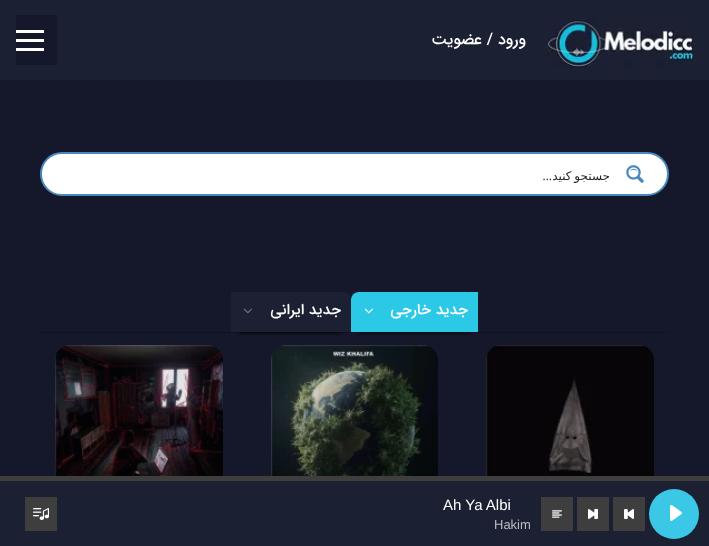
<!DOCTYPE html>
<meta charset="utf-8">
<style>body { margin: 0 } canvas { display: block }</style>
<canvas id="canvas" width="709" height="546"></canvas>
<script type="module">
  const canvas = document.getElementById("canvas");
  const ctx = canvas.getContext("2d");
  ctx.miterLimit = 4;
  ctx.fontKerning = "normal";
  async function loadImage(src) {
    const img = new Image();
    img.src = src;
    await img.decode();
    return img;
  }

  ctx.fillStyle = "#14182a";
  ctx.fillRect(0, 0, 709, 546);
  ctx.fillStyle = "#121627";
  ctx.fillRect(0, 80, 709, 1);
  ctx.fillStyle = "#1b2032";
  ctx.fillRect(0, 0, 709, 80);
  ctx.drawImage(await loadImage("img1.png"), 548, 18, 145, 50);
  ctx.direction = "rtl";
  ctx.font = "500 16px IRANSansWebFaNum";
  ctx.fillStyle = "#ffffff";
  ctx.fillText("ورود / عضویت", 526, 44);
  ctx.fillStyle = "#14182a";
  ctx.fillRect(16, 15, 41, 50);
  ctx.fillStyle = "#ffffff";
  ctx.fillRect(16, 39, 28, 3);
  ctx.fillRect(16, 30, 28, 3);
  ctx.fillRect(16, 48, 28, 3);
  ctx.beginPath();
  ctx.roundRect(41, 153, 627, 42, 21);
  ctx.fill();
  ctx.strokeStyle = "#4a89bf";
  ctx.lineWidth = 2;
  ctx.stroke();
  ctx.drawImage(await loadImage("img2.png"), 626, 165, 18, 18);
  ctx.wordSpacing = "-1px";
  ctx.font = "12px DejaVu Sans";
  ctx.fillStyle = "#262626";
  ctx.fillText("جستجو کنید", 610, 180);
  ctx.wordSpacing = "0px";
  ctx.font = "12px Open Sans";
  ctx.fillText("...", 552, 180);
  ctx.fillStyle = "#101322";
  ctx.fillRect(40, 332, 629, 1);
  ctx.fillStyle = "rgba(0, 0, 0, 0.5)";
  ctx.filter = "blur(1.5px)";
  ctx.beginPath();
  ctx.roundRect(356, 314, 117, 20, 6);
  ctx.fill();
  ctx.filter = "none";
  ctx.filter = "blur(1.5px)";
  ctx.beginPath();
  ctx.roundRect(236, 314, 110, 20, 6);
  ctx.fill();
  ctx.filter = "none";
  ctx.fillStyle = "#2cc9e6";
  ctx.beginPath();
  ctx.roundRect(351, 292, 127, 40, [8, 0, 0, 0]);
  ctx.fill();
  ctx.font = "500 15px IRANSansWebFaNum";
  ctx.fillStyle = "#ffffff";
  ctx.fillText("جدید خارجی", 468, 314);
  ctx.drawImage(await loadImage("img3.png"), 364, 308, 9, 6);
  ctx.fillStyle = "#1b2032";
  ctx.beginPath();
  ctx.roundRect(231, 292, 120, 40, [0, 8, 0, 0]);
  ctx.fill();
  ctx.fillStyle = "#ffffff";
  ctx.fillText("جدید ایرانی", 341, 314);
  ctx.drawImage(await loadImage("img4.png"), 243, 308, 9, 6);
  ctx.drawImage(await loadImage("img5.png"), 486, 345, 168, 131);
  ctx.drawImage(await loadImage("img6.png"), 271, 345, 167, 131);
  ctx.drawImage(await loadImage("img7.png"), 55, 345, 168, 131);
  ctx.fillStyle = "#1b2032";
  ctx.fillRect(0, 481, 709, 65);
  ctx.fillStyle = "#3e3e3e";
  ctx.fillRect(0, 476, 709, 5);
  ctx.fillStyle = "#3bc8e7";
  ctx.beginPath();
  ctx.arc(674, 514, 25, 0, Math.PI * 2);
  ctx.fill();
  ctx.drawImage(await loadImage("img8.png"), 670, 505, 12, 16);
  ctx.fillStyle = "#3e3e3e";
  ctx.fillRect(613, 497, 32, 34);
  ctx.drawImage(await loadImage("img9.png"), 624, 509, 10, 10);
  ctx.fillRect(577, 497, 32, 34);
  ctx.drawImage(await loadImage("img10.png"), 588, 509, 10, 10);
  ctx.fillRect(541, 497, 32, 34);
  ctx.drawImage(await loadImage("img11.png"), 552, 510, 10, 8);
  ctx.direction = "ltr";
  ctx.font = "15px Liberation Sans";
  ctx.fillStyle = "#ffffff";
  ctx.fillText("Ah Ya Albi", 443, 510);
  ctx.font = "13px Liberation Sans";
  ctx.fillStyle = "#bbbcc2";
  ctx.fillText("Hakim", 494, 529);
  ctx.fillStyle = "#3e3e3e";
  ctx.fillRect(25, 497, 32, 34);
  ctx.drawImage(await loadImage("img12.png"), 33, 508, 16, 12);
</script>
